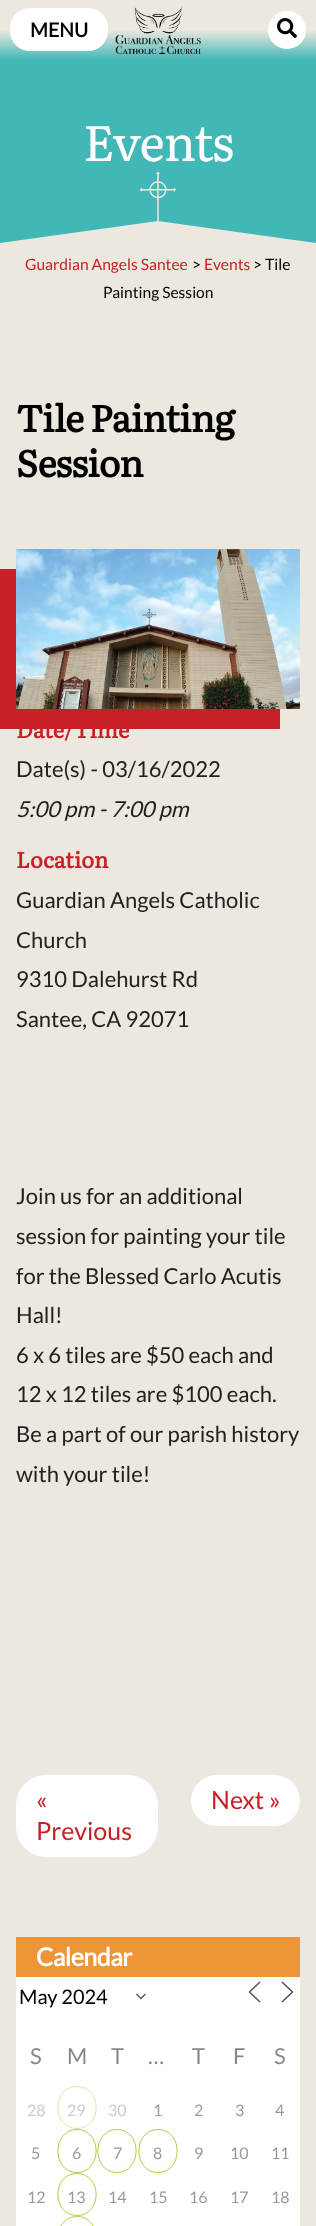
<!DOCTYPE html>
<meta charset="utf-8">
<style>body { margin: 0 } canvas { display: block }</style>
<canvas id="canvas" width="316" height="2226"></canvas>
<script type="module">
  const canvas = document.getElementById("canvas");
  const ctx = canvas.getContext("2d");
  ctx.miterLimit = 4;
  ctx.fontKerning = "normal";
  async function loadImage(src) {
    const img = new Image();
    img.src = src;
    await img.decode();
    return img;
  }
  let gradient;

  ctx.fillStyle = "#ece8e0";
  ctx.fillRect(0, 0, 316, 2226);
  gradient = ctx.createLinearGradient(158, 0, 158, 60);
  gradient.addColorStop(0, "#ece8e0");
  gradient.addColorStop(0.5, "#ece8e0");
  gradient.addColorStop(1, "#41b7b6");
  ctx.fillStyle = gradient;
  ctx.fillRect(0, 30, 316, 30);
  ctx.fillStyle = "#ffffff";
  ctx.beginPath();
  ctx.roundRect(10, 8, 98, 43, 20);
  ctx.fill();
  ctx.font = "bold 19.5px Lato";
  ctx.fillStyle = "#000000";
  ctx.fillText("MENU", 30, 37);
  ctx.drawImage(await loadImage("img1.png"), 115, 6, 86, 48);
  ctx.fillStyle = "#ffffff";
  ctx.beginPath();
  ctx.arc(287, 30, 19, 0, Math.PI * 2);
  ctx.fill();
  ctx.drawImage(await loadImage("img2.png"), 277, 18, 20, 20);
  ctx.fillStyle = "#41b7b6";
  ctx.fillRect(0, 60, 316, 183);
  ctx.letterSpacing = "-1px";
  ctx.font = "49.5px Literata";
  ctx.fillStyle = "#ffffff";
  ctx.fillText("Events", 83, 161);
  ctx.fillStyle = "#ece8e0";
  ctx.beginPath();
  ctx.moveTo(316, 250);
  ctx.lineTo(0, 250);
  ctx.lineTo(0, 243);
  ctx.lineTo(158, 221);
  ctx.lineTo(316, 243);
  ctx.closePath();
  ctx.fill();
  ctx.drawImage(await loadImage("img3.png"), 140, 172, 36, 50);
  ctx.letterSpacing = "0px";
  ctx.font = "15.6px Lato";
  ctx.fillStyle = "#c72026";
  ctx.fillText("Guardian Angels Santee", 25, 270);
  ctx.fillStyle = "#000000";
  ctx.fillText(">", 192, 270);
  ctx.fillStyle = "#c72026";
  ctx.fillText("Events", 204, 270);
  ctx.fillStyle = "#000000";
  ctx.fillText("> Tile", 253, 270);
  ctx.fillText("Painting Session", 103, 298);
  ctx.letterSpacing = "-0.75px";
  ctx.font = "bold 37px Literata";
  ctx.fillText("Tile Painting", 16, 432);
  ctx.fillText("Session", 16, 477);
  ctx.fillStyle = "#c72026";
  ctx.fillRect(0, 569, 280, 160);
  ctx.drawImage(await loadImage("img4.png"), 16, 549, 284, 160);
  ctx.letterSpacing = "0px";
  ctx.font = "bold 22px Literata";
  ctx.fillText("Date/Time", 16, 738);
  ctx.font = "22px Lato";
  ctx.fillStyle = "#212121";
  ctx.fillText("Date(s) - 03/16/2022", 16, 777);
  ctx.font = "italic 22px Lato";
  ctx.fillText("5:00 pm - 7:00 pm", 16, 817);
  ctx.font = "bold 22px Literata";
  ctx.fillStyle = "#c72026";
  ctx.fillText("Location", 16, 868);
  ctx.font = "22px Lato";
  ctx.fillStyle = "#212121";
  ctx.fillText("Guardian Angels Catholic", 16, 908);
  ctx.fillText("Church", 16, 948);
  ctx.fillText("9310 Dalehurst Rd", 16, 987);
  ctx.fillText("Santee, CA 92071", 16, 1027);
  ctx.fillText("Join us for an additional", 16, 1204);
  ctx.fillText("session for painting your tile", 16, 1244);
  ctx.fillText("for the Blessed Carlo Acutis", 16, 1284);
  ctx.fillText("Hall!", 16, 1323);
  ctx.fillText("6 x 6 tiles are $50 each and", 16, 1363);
  ctx.fillText("12 x 12 tiles are $100 each.", 16, 1402);
  ctx.fillText("Be a part of our parish history", 16, 1442);
  ctx.fillText("with your tile!", 16, 1482);
  ctx.fillStyle = "#ffffff";
  ctx.beginPath();
  ctx.roundRect(16, 1775, 142, 82, 30);
  ctx.fill();
  ctx.font = "25px Lato";
  ctx.fillStyle = "#c72026";
  ctx.fillText("«", 36, 1809);
  ctx.fillText("Previous", 36, 1840);
  ctx.fillStyle = "#ffffff";
  ctx.beginPath();
  ctx.roundRect(191, 1775, 109, 51, 25.5);
  ctx.fill();
  ctx.fillStyle = "#c72026";
  ctx.fillText("Next »", 211, 1809);
  ctx.fillStyle = "#ffffff";
  ctx.fillRect(16, 1977, 284, 249);
  ctx.fillStyle = "#ed9638";
  ctx.fillRect(16, 1937, 284, 40);
  ctx.letterSpacing = "-0.5px";
  ctx.font = "bold 25px Lato";
  ctx.fillStyle = "#ffffff";
  ctx.fillText("Calendar", 36, 1966);
  ctx.beginPath();
  ctx.moveTo(137, 1994.5);
  ctx.lineTo(141, 1998.5);
  ctx.lineTo(145, 1994.5);
  ctx.strokeStyle = "#555555";
  ctx.lineWidth = 1.3;
  ctx.lineCap = "square";
  ctx.stroke();
  ctx.letterSpacing = "0px";
  ctx.font = "20px Lato";
  ctx.fillStyle = "#000000";
  ctx.fillText("May 2024", 19, 2004);
  ctx.beginPath();
  ctx.moveTo(259.5, 2001.5);
  ctx.lineTo(249.5, 1992);
  ctx.lineTo(259.5, 1982.5);
  ctx.moveTo(282.5, 2001.5);
  ctx.lineTo(292.5, 1992);
  ctx.lineTo(282.5, 1982.5);
  ctx.lineWidth = 1.5;
  ctx.stroke();
  ctx.font = "22px Lato";
  ctx.fillStyle = "#888888";
  ctx.fillText("S", 30, 2064);
  ctx.fillText("M", 67, 2064);
  ctx.fillText("T", 111, 2064);
  ctx.fillText("…", 148, 2064);
  ctx.fillText("T", 192, 2064);
  ctx.fillText("F", 233, 2064);
  ctx.fillText("S", 274, 2064);
  ctx.font = "16px Lato";
  ctx.fillStyle = "#cccccc";
  ctx.fillText("28", 27, 2116);
  ctx.beginPath();
  ctx.moveTo(77, 2086.5);
  ctx.bezierCurveTo(102.5, 2086.5, 102.5, 2128.5, 77, 2128.5);
  ctx.bezierCurveTo(51.5, 2128.5, 51.5, 2086.5, 77, 2086.5);
  ctx.closePath();
  ctx.strokeStyle = "#d4e8a2";
  ctx.lineWidth = 1;
  ctx.lineCap = "butt";
  ctx.stroke();
  ctx.fillText("29", 67, 2116);
  ctx.fillText("30", 108, 2116);
  ctx.fillStyle = "#999999";
  ctx.fillText("1", 153, 2116);
  ctx.fillText("2", 194, 2116);
  ctx.fillText("3", 235, 2116);
  ctx.fillText("4", 275, 2116);
  ctx.fillText("5", 31, 2159);
  ctx.beginPath();
  ctx.moveTo(77, 2129.5);
  ctx.bezierCurveTo(102.5, 2129.5, 102.5, 2172.5, 77, 2172.5);
  ctx.bezierCurveTo(51.5, 2172.5, 51.5, 2129.5, 77, 2129.5);
  ctx.closePath();
  ctx.strokeStyle = "#a8d144";
  ctx.stroke();
  ctx.beginPath();
  ctx.arc(77, 2150, 17.5, 0, Math.PI * 2);
  ctx.strokeStyle = "#fefefe";
  ctx.stroke();
  ctx.fillText("6", 72, 2159);
  ctx.beginPath();
  ctx.moveTo(117, 2129.5);
  ctx.bezierCurveTo(142.5, 2129.5, 142.5, 2172.5, 117, 2172.5);
  ctx.bezierCurveTo(91.5, 2172.5, 91.5, 2129.5, 117, 2129.5);
  ctx.closePath();
  ctx.strokeStyle = "#a8d144";
  ctx.stroke();
  ctx.beginPath();
  ctx.arc(117, 2150, 17.5, 0, Math.PI * 2);
  ctx.strokeStyle = "#fefefe";
  ctx.stroke();
  ctx.fillText("7", 113, 2159);
  ctx.beginPath();
  ctx.moveTo(158, 2129.5);
  ctx.bezierCurveTo(183.5, 2129.5, 183.5, 2172.5, 158, 2172.5);
  ctx.bezierCurveTo(132.5, 2172.5, 132.5, 2129.5, 158, 2129.5);
  ctx.closePath();
  ctx.strokeStyle = "#a8d144";
  ctx.stroke();
  ctx.beginPath();
  ctx.arc(158, 2150, 17.5, 0, Math.PI * 2);
  ctx.strokeStyle = "#fefefe";
  ctx.stroke();
  ctx.fillText("8", 153, 2159);
  ctx.fillText("9", 194, 2159);
  ctx.fillText("10", 230, 2159);
  ctx.fillText("11", 271, 2159);
  ctx.fillText("12", 27, 2203);
  ctx.beginPath();
  ctx.moveTo(77, 2173.5);
  ctx.bezierCurveTo(102.5, 2173.5, 102.5, 2215.5, 77, 2215.5);
  ctx.bezierCurveTo(51.5, 2215.5, 51.5, 2173.5, 77, 2173.5);
  ctx.closePath();
  ctx.strokeStyle = "#a8d144";
  ctx.stroke();
  ctx.beginPath();
  ctx.arc(77, 2194, 17.5, 0, Math.PI * 2);
  ctx.strokeStyle = "#fefefe";
  ctx.stroke();
  ctx.fillText("13", 67, 2203);
  ctx.fillText("14", 108, 2203);
  ctx.fillText("15", 149, 2203);
  ctx.fillText("16", 189, 2203);
  ctx.fillText("17", 230, 2203);
  ctx.fillText("18", 271, 2203);
  ctx.beginPath();
  ctx.moveTo(77, 2216.5);
  ctx.bezierCurveTo(102.5, 2216.5, 102.5, 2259.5, 77, 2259.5);
  ctx.bezierCurveTo(51.5, 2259.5, 51.5, 2216.5, 77, 2216.5);
  ctx.closePath();
  ctx.strokeStyle = "#a8d144";
  ctx.stroke();
</script>
